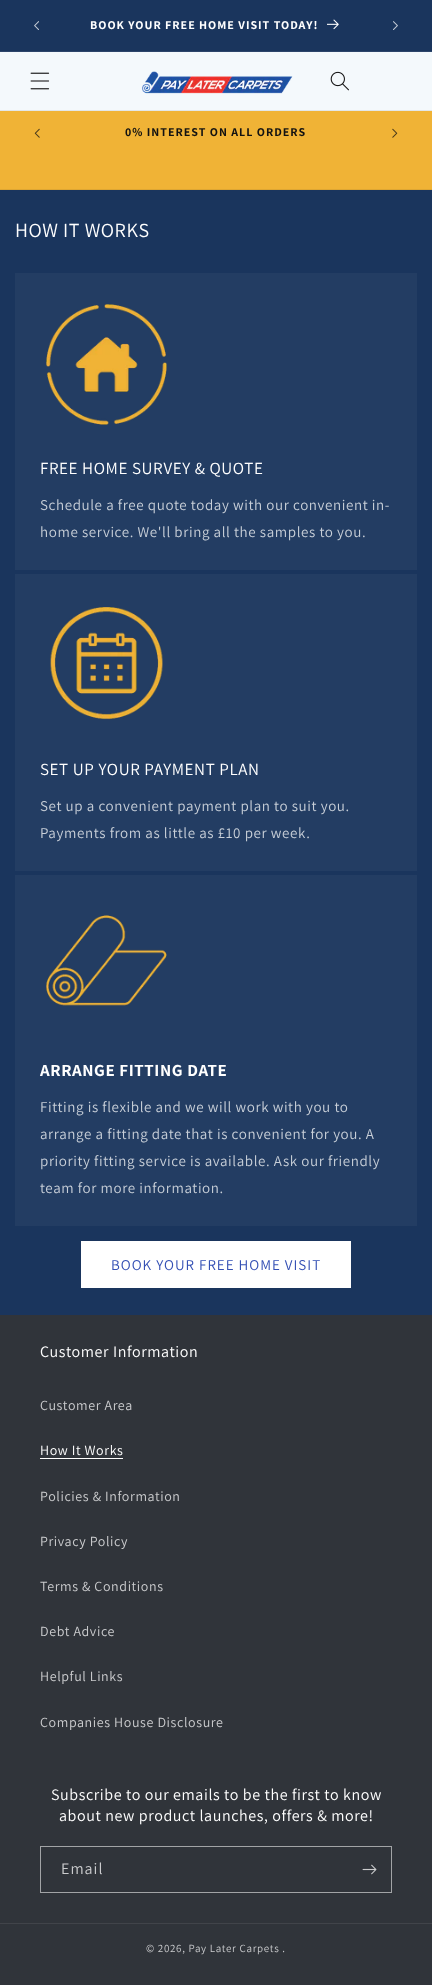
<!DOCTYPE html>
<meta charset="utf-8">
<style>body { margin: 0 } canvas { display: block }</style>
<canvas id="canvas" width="432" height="1985"></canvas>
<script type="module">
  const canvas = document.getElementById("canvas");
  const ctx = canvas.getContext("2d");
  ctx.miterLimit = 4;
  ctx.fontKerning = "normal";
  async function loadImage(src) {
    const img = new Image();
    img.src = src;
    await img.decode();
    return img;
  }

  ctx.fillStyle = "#f0b336";
  ctx.fillRect(0, 0, 432, 1985);
  ctx.fillStyle = "#1a355d";
  ctx.fillRect(0, 0, 432, 51);
  ctx.fillStyle = "#2c456a";
  ctx.fillRect(0, 51, 432, 1);
  ctx.drawImage(await loadImage("img1.png"), 34, 21, 5, 9);
  ctx.letterSpacing = "1px";
  ctx.font = "bold 12px Assistant";
  ctx.fillStyle = "#ffffff";
  ctx.fillText("BOOK YOUR FREE HOME VISIT TODAY!", 90, 29);
  ctx.drawImage(await loadImage("img2.png"), 327, 19, 12, 11);
  ctx.drawImage(await loadImage("img3.png"), 393, 21, 5, 9);
  ctx.fillStyle = "#f4f9fc";
  ctx.fillRect(0, 52, 432, 58);
  ctx.fillStyle = "#e2e7e9";
  ctx.fillRect(0, 110, 432, 1);
  ctx.drawImage(await loadImage("img4.png"), 30, 72, 20, 18);
  ctx.drawImage(await loadImage("img5.png"), 142, 71, 151, 23);
  ctx.drawImage(await loadImage("img6.png"), 330, 71, 19, 20);
  ctx.fillStyle = "#dea633";
  ctx.fillRect(0, 189, 432, 1);
  ctx.drawImage(await loadImage("img7.png"), 34, 128, 6, 10);
  ctx.fillStyle = "#121212";
  ctx.fillText("0% INTEREST ON ALL ORDERS", 125, 136);
  ctx.drawImage(await loadImage("img8.png"), 392, 128, 6, 10);
  ctx.fillStyle = "#1a355d";
  ctx.fillRect(0, 190, 432, 1125);
  ctx.letterSpacing = "0.6px";
  ctx.font = "20px Assistant";
  ctx.fillStyle = "#ffffff";
  ctx.fillText("HOW IT WORKS", 15, 237);
  ctx.fillStyle = "#233d63";
  ctx.fillRect(15, 273, 402, 297);
  ctx.drawImage(await loadImage("img9.png"), 46, 304, 121, 121);
  ctx.font = "17px Assistant";
  ctx.fillStyle = "#ffffff";
  ctx.fillText("FREE HOME SURVEY & QUOTE", 40, 474);
  ctx.font = "15px Assistant";
  ctx.fillStyle = "#c8cfd8";
  ctx.fillText("Schedule a free quote today with our convenient in-", 40, 510);
  ctx.fillText("home service. We'll bring all the samples to you.", 40, 537);
  ctx.fillStyle = "#233d63";
  ctx.fillRect(15, 574, 402, 297);
  ctx.drawImage(await loadImage("img10.png"), 50, 607, 113, 113);
  ctx.font = "17px Assistant";
  ctx.fillStyle = "#ffffff";
  ctx.fillText("SET UP YOUR PAYMENT PLAN", 40, 775);
  ctx.font = "15px Assistant";
  ctx.fillStyle = "#c8cfd8";
  ctx.fillText("Set up a convenient payment plan to suit you.", 40, 811);
  ctx.fillText("Payments from as little as £10 per week.", 40, 838);
  ctx.fillStyle = "#233d63";
  ctx.fillRect(15, 875, 402, 351);
  ctx.drawImage(await loadImage("img11.png"), 46, 915, 121, 91);
  ctx.font = "bold 17px Assistant";
  ctx.fillStyle = "#ffffff";
  ctx.fillText("ARRANGE FITTING DATE", 40, 1076);
  ctx.font = "15px Assistant";
  ctx.fillStyle = "#c8cfd8";
  ctx.fillText("Fitting is flexible and we will work with you to", 40, 1112);
  ctx.fillText("arrange a fitting date that is convenient for you. A", 40, 1139);
  ctx.fillText("priority fitting service is available. Ask our friendly", 40, 1166);
  ctx.fillText("team for more information.", 40, 1193);
  ctx.fillStyle = "#ffffff";
  ctx.fillRect(81, 1241, 270, 47);
  ctx.letterSpacing = "1px";
  ctx.fillStyle = "#334fb4";
  ctx.fillText("BOOK YOUR FREE HOME VISIT", 111, 1270);
  ctx.fillStyle = "#30343a";
  ctx.fillRect(0, 1315, 432, 670);
  ctx.letterSpacing = "0.6px";
  ctx.font = "16px Assistant";
  ctx.fillStyle = "#ffffff";
  ctx.fillText("Customer Information", 40, 1357);
  ctx.font = "14px Assistant";
  ctx.fillStyle = "#cbccce";
  ctx.fillText("Customer Area", 40, 1410);
  ctx.fillStyle = "#ffffff";
  ctx.fillText("How It Works", 40, 1455);
  ctx.fillRect(40, 1458, 83, 1);
  ctx.fillStyle = "#cbccce";
  ctx.fillText("Policies & Information", 40, 1501);
  ctx.fillText("Privacy Policy", 40, 1546);
  ctx.fillText("Terms & Conditions", 40, 1591);
  ctx.fillText("Debt Advice", 40, 1636);
  ctx.fillText("Helpful Links", 40, 1681);
  ctx.fillText("Companies House Disclosure", 40, 1727);
  ctx.font = "16px Assistant";
  ctx.fillStyle = "#ffffff";
  ctx.fillText("Subscribe to our emails to be the first to know", 51, 1800);
  ctx.fillText("about new product launches, offers & more!", 59, 1821);
  ctx.strokeStyle = "#a2a4a6";
  ctx.strokeRect(40.5, 1846.5, 351, 46);
  ctx.letterSpacing = "1px";
  ctx.fillStyle = "#cbccce";
  ctx.fillText("Email", 61, 1874);
  ctx.drawImage(await loadImage("img12.png"), 362, 1864, 15, 11);
  ctx.fillStyle = "#41444a";
  ctx.fillRect(0, 1923, 432, 1);
  ctx.letterSpacing = "0.7px";
  ctx.font = "11px Assistant";
  ctx.fillStyle = "#cbccce";
  ctx.fillText("© 2026, Pay Later Carpets .", 146, 1952);
</script>
